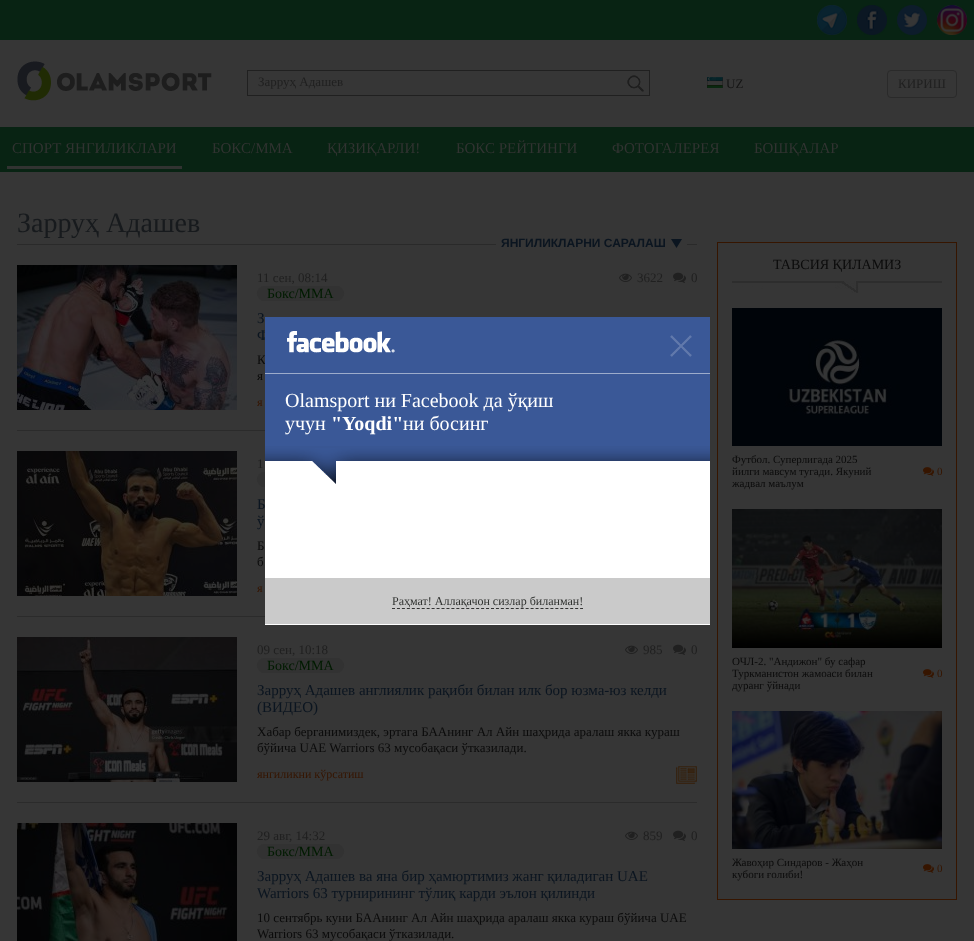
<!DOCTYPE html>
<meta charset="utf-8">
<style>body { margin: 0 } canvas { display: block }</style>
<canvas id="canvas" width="974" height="941"></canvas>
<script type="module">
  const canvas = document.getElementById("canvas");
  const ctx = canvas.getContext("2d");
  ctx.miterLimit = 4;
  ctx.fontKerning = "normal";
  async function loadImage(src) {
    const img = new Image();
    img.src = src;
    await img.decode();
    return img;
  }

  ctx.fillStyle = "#363636";
  ctx.fillRect(0, 0, 974, 941);
  ctx.fillStyle = "#082313";
  ctx.fillRect(0, 0, 974, 40);
  ctx.drawImage(await loadImage("img1.png"), 817, 5, 30, 30);
  ctx.drawImage(await loadImage("img2.png"), 857, 5, 30, 30);
  ctx.drawImage(await loadImage("img3.png"), 897, 5, 30, 30);
  ctx.drawImage(await loadImage("img4.png"), 937, 5, 30, 30);
  ctx.drawImage(await loadImage("img5.png"), 17, 61, 195, 40);
  ctx.strokeStyle = "#202020";
  ctx.strokeRect(247.5, 70.5, 402, 25);
  ctx.font = "13px Liberation Serif";
  ctx.fillStyle = "#202020";
  ctx.fillText("Зарруҳ Адашев", 258, 86);
  ctx.drawImage(await loadImage("img6.png"), 627, 75, 17, 17);
  ctx.drawImage(await loadImage("img7.png"), 707, 77, 16, 11);
  ctx.fillStyle = "#151515";
  ctx.fillText("UZ", 726, 88);
  ctx.beginPath();
  ctx.roundRect(887.5, 70.5, 69, 27, 3.5);
  ctx.strokeStyle = "#2a2a2a";
  ctx.stroke();
  ctx.fillStyle = "#202020";
  ctx.fillText("КИРИШ", 898, 88);
  ctx.fillStyle = "#082313";
  ctx.fillRect(0, 127, 974, 45);
  ctx.fillStyle = "#313331";
  ctx.fillRect(7, 166, 175, 3);
  ctx.font = "15px Liberation Serif";
  ctx.fillText("СПОРТ ЯНГИЛИКЛАРИ", 12, 153);
  ctx.fillText("БОКС/ММА", 212, 153);
  ctx.fillText("ҚИЗИҚАРЛИ!", 327, 153);
  ctx.fillText("БОКС РЕЙТИНГИ", 456, 153);
  ctx.fillText("ФОТОГАЛЕРЕЯ", 612, 153);
  ctx.fillText("БОШҚАЛАР", 754, 153);
  ctx.fillStyle = "#2a2a2a";
  ctx.fillRect(17, 244, 680, 1);
  ctx.font = "28px Liberation Serif";
  ctx.fillStyle = "#171a1d";
  ctx.fillText("Зарруҳ Адашев", 17, 232);
  ctx.fillStyle = "#363636";
  ctx.fillRect(496, 244, 191, 1);
  ctx.font = "bold 12px Liberation Sans";
  ctx.fillStyle = "#0b1520";
  ctx.fillText("ЯНГИЛИКЛАРНИ САРАЛАШ", 501, 247);
  ctx.drawImage(await loadImage("img8.png"), 671, 239, 11, 9);
  ctx.drawImage(await loadImage("img9.png"), 17, 265, 220, 145);
  ctx.font = "13px Liberation Serif";
  ctx.fillStyle = "#202020";
  ctx.fillText("11 сен, 08:14", 257, 282);
  ctx.drawImage(await loadImage("img10.png"), 619, 273, 13, 9);
  ctx.fillText("3622", 637, 282);
  ctx.drawImage(await loadImage("img11.png"), 673, 272, 13, 11);
  ctx.fillText("0", 691, 282);
  ctx.fillStyle = "#323232";
  ctx.beginPath();
  ctx.roundRect(257, 286, 87, 15, 7.5);
  ctx.fill();
  ctx.font = "14px Liberation Serif";
  ctx.fillStyle = "#001b00";
  ctx.fillText("Бокс/ММА", 267, 298);
  ctx.font = "15px Liberation Serif";
  ctx.fillStyle = "#0b1520";
  ctx.fillText("З", 257, 323);
  ctx.fillText("Ф", 257, 340);
  ctx.font = "13px Liberation Serif";
  ctx.fillStyle = "#0b0b0b";
  ctx.fillText("К", 257, 364);
  ctx.fillText("я", 257, 380);
  ctx.font = "12px Liberation Serif";
  ctx.fillStyle = "#361500";
  ctx.fillText("я", 257, 406);
  ctx.fillStyle = "#2b2b2b";
  ctx.fillRect(17, 430, 248, 1);
  ctx.drawImage(await loadImage("img12.png"), 17, 451, 220, 145);
  ctx.font = "13px Liberation Serif";
  ctx.fillStyle = "#202020";
  ctx.fillText("1", 257, 468);
  ctx.fillStyle = "#323232";
  ctx.beginPath();
  ctx.roundRect(257, 472, 87, 15, 7.5);
  ctx.fill();
  ctx.font = "15px Liberation Serif";
  ctx.fillStyle = "#0b1520";
  ctx.fillText("Б", 257, 509);
  ctx.fillText("ў", 257, 526);
  ctx.font = "13px Liberation Serif";
  ctx.fillStyle = "#0b0b0b";
  ctx.fillText("Б", 257, 550);
  ctx.fillText("б", 257, 566);
  ctx.font = "12px Liberation Serif";
  ctx.fillStyle = "#361500";
  ctx.fillText("я", 257, 592);
  ctx.fillStyle = "#2b2b2b";
  ctx.fillRect(17, 616, 248, 1);
  ctx.drawImage(await loadImage("img13.png"), 17, 637, 220, 145);
  ctx.font = "13px Liberation Serif";
  ctx.fillStyle = "#202020";
  ctx.fillText("09 сен, 10:18", 257, 654);
  ctx.drawImage(await loadImage("img10.png"), 625, 645, 13, 9);
  ctx.fillText("985", 643, 654);
  ctx.drawImage(await loadImage("img11.png"), 673, 644, 13, 11);
  ctx.fillText("0", 691, 654);
  ctx.fillStyle = "#323232";
  ctx.beginPath();
  ctx.roundRect(257, 658, 87, 15, 7.5);
  ctx.fill();
  ctx.font = "14px Liberation Serif";
  ctx.fillStyle = "#001b00";
  ctx.fillText("Бокс/ММА", 267, 670);
  ctx.font = "15px Liberation Serif";
  ctx.fillStyle = "#0b1520";
  ctx.fillText("Зарруҳ Адашев англиялик рақиби билан илк бор юзма-юз келди", 257, 695);
  ctx.fillText("(ВИДЕО)", 257, 712);
  ctx.font = "13px Liberation Serif";
  ctx.fillStyle = "#0b0b0b";
  ctx.fillText("Хабар берганимиздек, эртага БААнинг Ал Айн шаҳрида аралаш якка кураш", 257, 736);
  ctx.fillText("бўйича UAE Warriors 63 мусобақаси ўтказилади.", 257, 752);
  ctx.font = "12px Liberation Serif";
  ctx.fillStyle = "#361500";
  ctx.fillText("янгиликни кўрсатиш", 257, 778);
  ctx.drawImage(await loadImage("img14.png"), 676, 766, 21, 18);
  ctx.fillStyle = "#2b2b2b";
  ctx.fillRect(17, 802, 680, 1);
  ctx.drawImage(await loadImage("img15.png"), 17, 823, 220, 118);
  ctx.font = "13px Liberation Serif";
  ctx.fillStyle = "#202020";
  ctx.fillText("29 авг, 14:32", 257, 840);
  ctx.drawImage(await loadImage("img10.png"), 625, 831, 13, 9);
  ctx.fillText("859", 643, 840);
  ctx.drawImage(await loadImage("img11.png"), 673, 830, 13, 11);
  ctx.fillText("0", 691, 840);
  ctx.fillStyle = "#323232";
  ctx.beginPath();
  ctx.roundRect(257, 844, 87, 15, 7.5);
  ctx.fill();
  ctx.font = "14px Liberation Serif";
  ctx.fillStyle = "#001b00";
  ctx.fillText("Бокс/ММА", 267, 856);
  ctx.font = "15px Liberation Serif";
  ctx.fillStyle = "#0b1520";
  ctx.fillText("Зарруҳ Адашев ва яна бир ҳамюртимиз жанг қиладиган UAE", 257, 881);
  ctx.fillText("Warriors 63 турнирининг тўлиқ карди эълон қилинди", 257, 898);
  ctx.font = "13px Liberation Serif";
  ctx.fillStyle = "#0b0b0b";
  ctx.fillText("10 сентябрь куни БААнинг Ал Айн шаҳрида аралаш якка кураш бўйича UAE", 257, 922);
  ctx.fillText("Warriors 63 мусобақаси ўтказилади.", 257, 938);
  ctx.strokeStyle = "#361500";
  ctx.strokeRect(717.5, 242.5, 239, 657);
  ctx.drawImage(await loadImage("img16.png"), 732, 281, 210, 12);
  ctx.font = "14px Liberation Serif";
  ctx.fillText("ТАВСИЯ ҚИЛАМИЗ", 773, 269);
  ctx.drawImage(await loadImage("img17.png"), 732, 308, 210, 138);
  ctx.font = "11px Liberation Serif";
  ctx.fillText("Футбол. Суперлигада 2025", 732, 463);
  ctx.fillText("йилги мавсум тугади. Якуний", 732, 475);
  ctx.drawImage(await loadImage("img18.png"), 923, 467, 11, 9);
  ctx.fillStyle = "#361500";
  ctx.fillText("0", 937, 475);
  ctx.fillStyle = "#0b0b0b";
  ctx.fillText("жадвал маълум", 732, 487);
  ctx.drawImage(await loadImage("img19.png"), 732, 509, 210, 139);
  ctx.fillText("ОЧЛ-2. \"Андижон\" бу сафар", 732, 665);
  ctx.fillText("Туркманистон жамоаси билан", 732, 677);
  ctx.drawImage(await loadImage("img18.png"), 923, 669, 11, 9);
  ctx.fillStyle = "#361500";
  ctx.fillText("0", 937, 677);
  ctx.fillStyle = "#0b0b0b";
  ctx.fillText("дуранг ўйнади", 732, 689);
  ctx.drawImage(await loadImage("img20.png"), 732, 711, 210, 138);
  ctx.fillText("Жавоҳир Синдаров - Жаҳон", 732, 866);
  ctx.drawImage(await loadImage("img18.png"), 923, 864, 11, 9);
  ctx.fillStyle = "#361500";
  ctx.fillText("0", 937, 872);
  ctx.fillStyle = "#0b0b0b";
  ctx.fillText("кубоги ғолиби!", 732, 878);
  ctx.fillStyle = "#ffffff";
  ctx.fillRect(265, 484, 445, 141);
  ctx.drawImage(await loadImage("img21.png"), 265, 317, 445, 167);
  ctx.drawImage(await loadImage("img22.png"), 670, 335, 22, 22);
  ctx.font = "20px Liberation Serif";
  ctx.fillText("Olamsport ни Facebook да ўқиш", 285, 407);
  ctx.fillText("учун", 285, 430);
  ctx.font = "bold 20px Liberation Serif";
  ctx.fillText("\"Yoqdi\"", 331, 430);
  ctx.font = "20px Liberation Serif";
  ctx.fillText("ни босинг", 403, 430);
  ctx.fillStyle = "#cacaca";
  ctx.fillRect(265, 578, 445, 46);
  ctx.font = "12px Liberation Serif";
  ctx.fillStyle = "#313331";
  ctx.fillText("Раҳмат! Аллақачон сизлар биланман!", 392, 605);
  ctx.beginPath();
  ctx.moveTo(392, 608.5);
  ctx.lineTo(583, 608.5);
  ctx.strokeStyle = "#333333";
  ctx.setLineDash([3, 1.95]);
  ctx.stroke();
</script>
